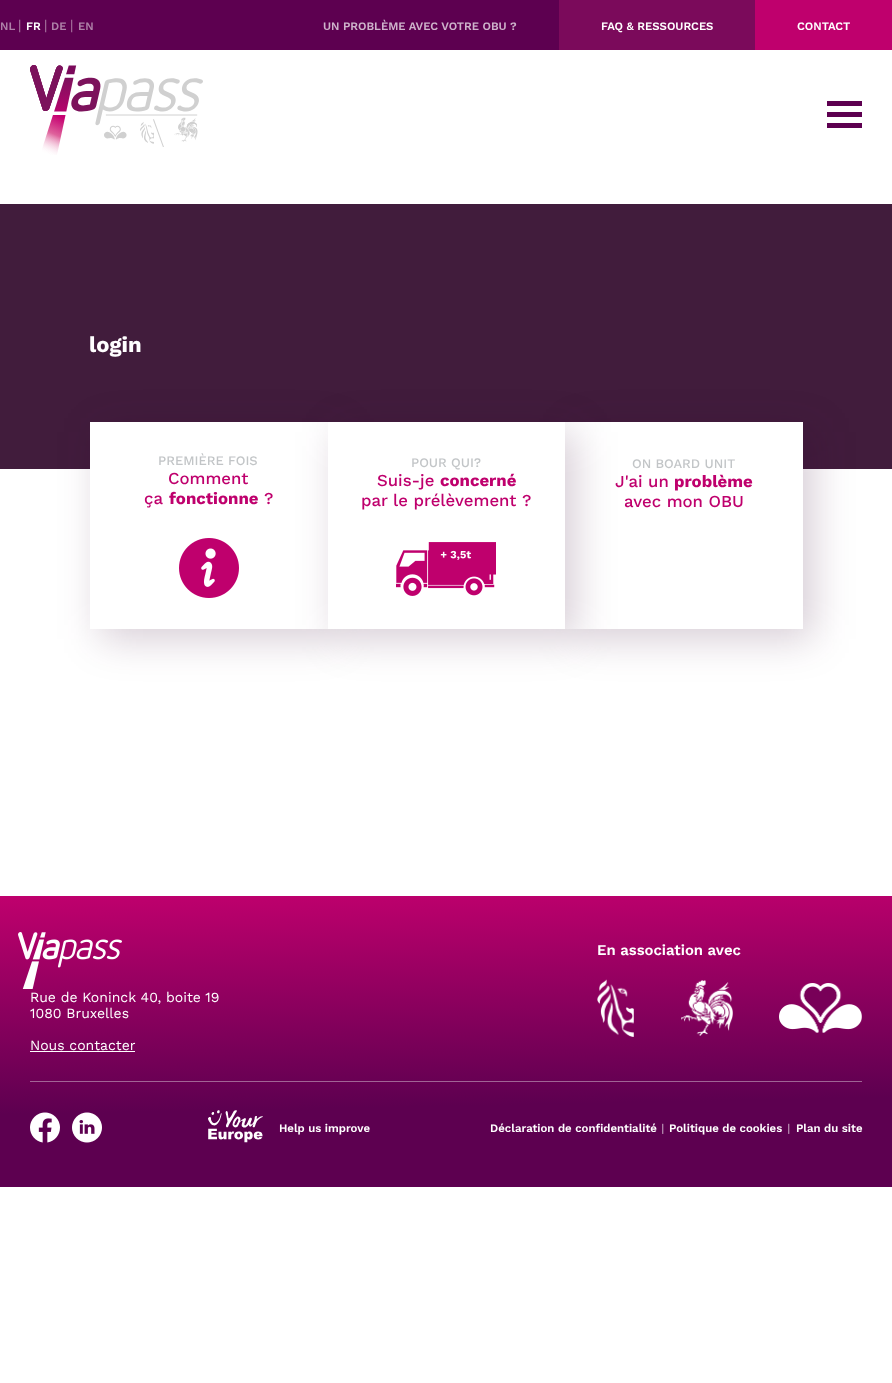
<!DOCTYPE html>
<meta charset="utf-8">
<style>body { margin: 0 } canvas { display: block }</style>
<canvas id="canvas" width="892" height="1383"></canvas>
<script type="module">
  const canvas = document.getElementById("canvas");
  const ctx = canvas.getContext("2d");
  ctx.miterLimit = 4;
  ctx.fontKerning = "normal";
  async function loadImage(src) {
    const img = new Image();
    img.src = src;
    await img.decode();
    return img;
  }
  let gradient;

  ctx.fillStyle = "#ffffff";
  ctx.fillRect(0, 0, 892, 1383);
  ctx.fillStyle = "#5d0050";
  ctx.fillRect(0, 0, 559, 50);
  ctx.font = "600 11.4px Work Sans";
  ctx.fillStyle = "#ae80a8";
  ctx.fillText("NL", 0, 30);
  ctx.font = "14px Work Sans";
  ctx.fillText("|", 18, 30);
  ctx.font = "600 11.4px Work Sans";
  ctx.fillStyle = "#ffffff";
  ctx.fillText("FR", 26, 30);
  ctx.font = "14px Work Sans";
  ctx.fillStyle = "#ae80a8";
  ctx.fillText("|", 44, 30);
  ctx.font = "600 11.4px Work Sans";
  ctx.fillText("DE", 51, 30);
  ctx.font = "14px Work Sans";
  ctx.fillText("|", 70, 30);
  ctx.font = "600 11.4px Work Sans";
  ctx.fillText("EN", 78, 30);
  ctx.fillStyle = "#ceb3cb";
  ctx.fillText("UN PROBLÈME AVEC VOTRE OBU ?", 323, 30);
  ctx.fillStyle = "#7b0a5b";
  ctx.fillRect(559, 0, 196, 50);
  ctx.fillStyle = "#ffffff";
  ctx.fillText("FAQ & RESSOURCES", 601, 30);
  ctx.fillStyle = "#bf006d";
  ctx.fillRect(755, 0, 137, 50);
  ctx.fillStyle = "#ffffff";
  ctx.fillText("CONTACT", 797, 30);
  ctx.drawImage(await loadImage("img1.png"), 30, 65, 173, 90);
  ctx.fillStyle = "#5d0050";
  ctx.fillRect(827, 101, 35, 5);
  ctx.fillRect(827, 112, 35, 5);
  ctx.fillRect(827, 123, 35, 5);
  ctx.fillStyle = "#411c3c";
  ctx.fillRect(0, 204, 892, 265);
  ctx.font = "bold 22px Work Sans";
  ctx.fillStyle = "#ffffff";
  ctx.fillText("login", 89, 352);
  ctx.fillStyle = "rgba(51, 0, 44, 0.2)";
  ctx.filter = "blur(20px)";
  ctx.beginPath();
  ctx.rect(100, 432, 238, 207);
  ctx.fill();
  ctx.filter = "none";
  ctx.fillStyle = "#ffffff";
  ctx.fillRect(90, 422, 238, 207);
  ctx.font = "500 13px Work Sans";
  ctx.fillStyle = "#c2c5c7";
  ctx.fillText("PREMIÈRE FOIS", 158, 465);
  ctx.font = "500 16.75px Work Sans";
  ctx.fillStyle = "#bf006d";
  ctx.fillText("Comment", 168, 484);
  ctx.fillText("ça", 144, 504);
  ctx.font = "bold 16.75px Work Sans";
  ctx.fillText("fonctionne", 169, 504);
  ctx.font = "500 16.75px Work Sans";
  ctx.fillText("?", 264, 504);
  ctx.drawImage(await loadImage("img2.png"), 179, 538, 60, 60);
  ctx.fillStyle = "rgba(51, 0, 44, 0.2)";
  ctx.filter = "blur(20px)";
  ctx.beginPath();
  ctx.rect(575, 432, 238, 207);
  ctx.fill();
  ctx.filter = "none";
  ctx.fillStyle = "#ffffff";
  ctx.fillRect(565, 422, 238, 207);
  ctx.fillStyle = "rgba(51, 0, 44, 0.2)";
  ctx.filter = "blur(20px)";
  ctx.beginPath();
  ctx.rect(338, 432, 237, 207);
  ctx.fill();
  ctx.filter = "none";
  ctx.fillStyle = "#ffffff";
  ctx.fillRect(328, 422, 237, 207);
  ctx.font = "500 13px Work Sans";
  ctx.fillStyle = "#c2c5c7";
  ctx.fillText("POUR QUI?", 411, 467);
  ctx.font = "500 16.75px Work Sans";
  ctx.fillStyle = "#bf006d";
  ctx.fillText("Suis-je", 377, 486);
  ctx.font = "bold 16.75px Work Sans";
  ctx.fillText("concerné", 440, 486);
  ctx.font = "500 16.75px Work Sans";
  ctx.fillText("par le prélèvement ?", 361, 506);
  ctx.drawImage(await loadImage("img3.png"), 396, 542, 100, 54);
  ctx.font = "500 13px Work Sans";
  ctx.fillStyle = "#c2c5c7";
  ctx.fillText("ON BOARD UNIT", 632, 468);
  ctx.font = "500 16.75px Work Sans";
  ctx.fillStyle = "#bf006d";
  ctx.fillText("J'ai un", 615, 487);
  ctx.font = "bold 16.75px Work Sans";
  ctx.fillText("problème", 674, 487);
  ctx.font = "500 16.75px Work Sans";
  ctx.fillText("avec mon OBU", 624, 507);
  gradient = ctx.createLinearGradient(443, 888, 449, 1195);
  gradient.addColorStop(0, "#bf006d");
  gradient.addColorStop(0.71, "#5d0050");
  ctx.fillStyle = gradient;
  ctx.fillRect(0, 896, 892, 291);
  gradient = ctx.createLinearGradient(443, 888, 449, 1195);
  gradient.addColorStop(0, "#d364a4");
  gradient.addColorStop(0.71, "#9a6493");
  ctx.fillStyle = gradient;
  ctx.fillRect(30, 1081, 832, 1);
  ctx.font = "600 14.9px Work Sans";
  ctx.fillStyle = "#ffffff";
  ctx.fillText("En association avec", 597, 955);
  ctx.drawImage(await loadImage("img4.png"), 597, 979, 37, 58);
  ctx.drawImage(await loadImage("img5.png"), 681, 980, 52, 56);
  ctx.drawImage(await loadImage("img6.png"), 779, 983, 83, 50);
  ctx.drawImage(await loadImage("img7.png"), 18, 932, 104, 57);
  ctx.font = "14px Work Sans";
  ctx.fillText("Rue de Koninck 40, boite 19", 30, 1002);
  ctx.fillText("1080 Bruxelles", 30, 1018);
  ctx.fillText("Nous contacter", 30, 1050);
  ctx.fillRect(30, 1051, 105, 1);
  ctx.drawImage(await loadImage("img8.png"), 30, 1112, 30, 31);
  ctx.drawImage(await loadImage("img9.png"), 72, 1112, 30, 31);
  ctx.drawImage(await loadImage("img10.png"), 208, 1110, 55, 33);
  ctx.font = "600 11.4px Work Sans";
  ctx.fillText("Help us improve", 279, 1132);
  ctx.fillText("Déclaration de confidentialité", 490, 1132);
  ctx.fillStyle = "#ae80a8";
  ctx.fillText("|", 661, 1132);
  ctx.fillStyle = "#ffffff";
  ctx.fillText("Politique de cookies", 669, 1132);
  ctx.fillStyle = "#ae80a8";
  ctx.fillText("|", 787, 1132);
  ctx.fillStyle = "#ffffff";
  ctx.fillText("Plan du site", 796, 1132);
</script>
